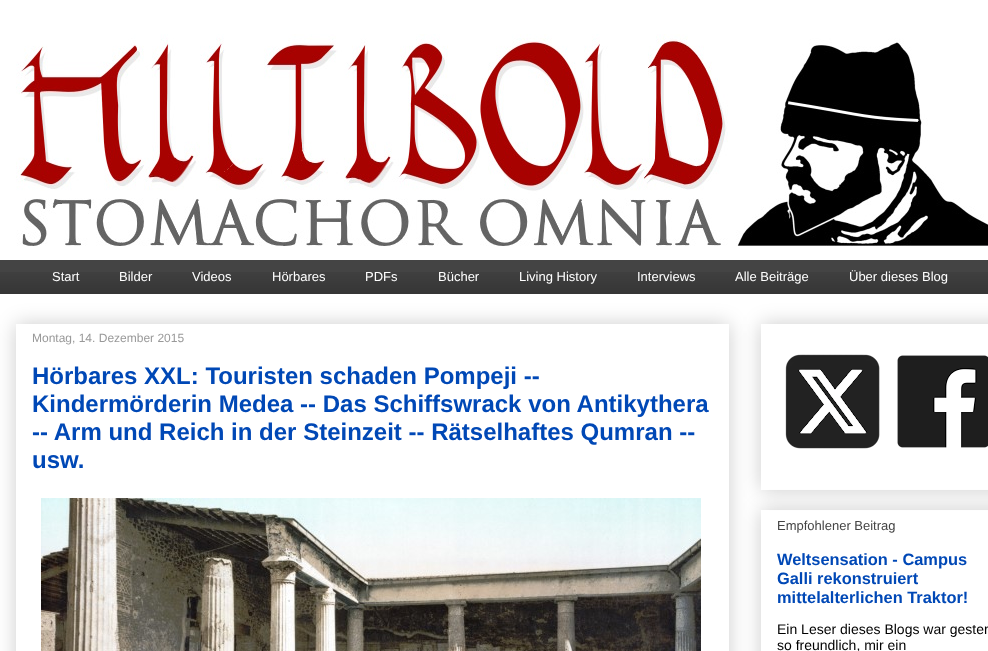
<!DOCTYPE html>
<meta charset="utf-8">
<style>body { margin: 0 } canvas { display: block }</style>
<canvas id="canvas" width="988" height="651"></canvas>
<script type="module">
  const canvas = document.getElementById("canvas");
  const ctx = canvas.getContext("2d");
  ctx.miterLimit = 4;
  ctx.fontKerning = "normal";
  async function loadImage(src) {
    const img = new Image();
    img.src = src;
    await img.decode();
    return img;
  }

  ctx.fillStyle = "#ffffff";
  ctx.fillRect(0, 0, 988, 651);
  ctx.drawImage(await loadImage("img1.png"), 16, 34, 972, 212);
  ctx.fillStyle = "#444444";
  ctx.fillRect(0, 260, 988, 34);
  ctx.drawImage(await loadImage("img2.png"), 0, 272, 988, 22);
  ctx.font = "13px Liberation Sans";
  ctx.fillStyle = "#ffffff";
  ctx.fillText("Start", 52, 281);
  ctx.fillText("Bilder", 119, 281);
  ctx.fillText("Videos", 192, 281);
  ctx.fillText("Hörbares", 272, 281);
  ctx.fillText("PDFs", 365, 281);
  ctx.fillText("Bücher", 438, 281);
  ctx.fillText("Living History", 519, 281);
  ctx.fillText("Interviews", 637, 281);
  ctx.fillText("Alle Beiträge", 735, 281);
  ctx.fillText("Über dieses Blog", 849, 281);
  ctx.save();
  ctx.beginPath();
  ctx.moveTo(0, 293);
  ctx.lineTo(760, 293);
  ctx.lineTo(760, 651);
  ctx.lineTo(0, 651);
  ctx.closePath();
  ctx.moveTo(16, 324);
  ctx.lineTo(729, 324);
  ctx.lineTo(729, 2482);
  ctx.lineTo(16, 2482);
  ctx.closePath();
  ctx.clip("evenodd");
  ctx.fillStyle = "rgba(0, 0, 0, 0.2)";
  ctx.filter = "blur(10px)";
  ctx.beginPath();
  ctx.rect(16, 324, 713, 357);
  ctx.fill();
  ctx.filter = "none";
  ctx.restore();
  ctx.font = "12px Liberation Sans";
  ctx.fillStyle = "#999999";
  ctx.fillText("Montag, 14. Dezember 2015", 32, 342);
  ctx.font = "bold 24px Liberation Sans";
  ctx.fillStyle = "#0048b6";
  ctx.fillText("Hörbares XXL: Touristen schaden Pompeji --", 32, 384);
  ctx.fillText("Kindermörderin Medea -- Das Schiffswrack von Antikythera", 32, 412);
  ctx.fillText("-- Arm und Reich in der Steinzeit -- Rätselhaftes Qumran --", 32, 440);
  ctx.fillText("usw.", 32, 468);
  ctx.drawImage(await loadImage("img3.png"), 41, 498, 660, 153);
  ctx.save();
  ctx.beginPath();
  ctx.moveTo(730, 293);
  ctx.lineTo(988, 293);
  ctx.lineTo(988, 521);
  ctx.lineTo(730, 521);
  ctx.closePath();
  ctx.moveTo(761, 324);
  ctx.lineTo(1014, 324);
  ctx.lineTo(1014, 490);
  ctx.lineTo(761, 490);
  ctx.closePath();
  ctx.clip("evenodd");
  ctx.fillStyle = "rgba(0, 0, 0, 0.2)";
  ctx.filter = "blur(10px)";
  ctx.beginPath();
  ctx.rect(761, 324, 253, 166);
  ctx.fill();
  ctx.filter = "none";
  ctx.restore();
  ctx.drawImage(await loadImage("img4.png"), 785, 354, 95, 95);
  ctx.drawImage(await loadImage("img5.png"), 897, 355, 91, 93);
  ctx.save();
  ctx.beginPath();
  ctx.moveTo(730, 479);
  ctx.lineTo(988, 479);
  ctx.lineTo(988, 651);
  ctx.lineTo(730, 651);
  ctx.closePath();
  ctx.moveTo(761, 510);
  ctx.lineTo(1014, 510);
  ctx.lineTo(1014, 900);
  ctx.lineTo(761, 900);
  ctx.closePath();
  ctx.clip("evenodd");
  ctx.fillStyle = "rgba(0, 0, 0, 0.2)";
  ctx.filter = "blur(10px)";
  ctx.beginPath();
  ctx.rect(761, 510, 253, 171);
  ctx.fill();
  ctx.filter = "none";
  ctx.restore();
  ctx.font = "13px Liberation Sans";
  ctx.fillStyle = "#444444";
  ctx.fillText("Empfohlener Beitrag", 777, 530);
  ctx.font = "bold 16.4px Liberation Sans";
  ctx.fillStyle = "#0048b6";
  ctx.fillText("Weltsensation - Campus", 777, 565);
  ctx.fillText("Galli rekonstruiert", 777, 584);
  ctx.fillText("mittelalterlichen Traktor!", 777, 603);
  ctx.font = "14px Liberation Sans";
  ctx.fillStyle = "#000000";
  ctx.fillText("Ein Leser dieses Blogs war gester", 777, 634);
  ctx.fillText("so freundlich, mir ein", 777, 650);
</script>
